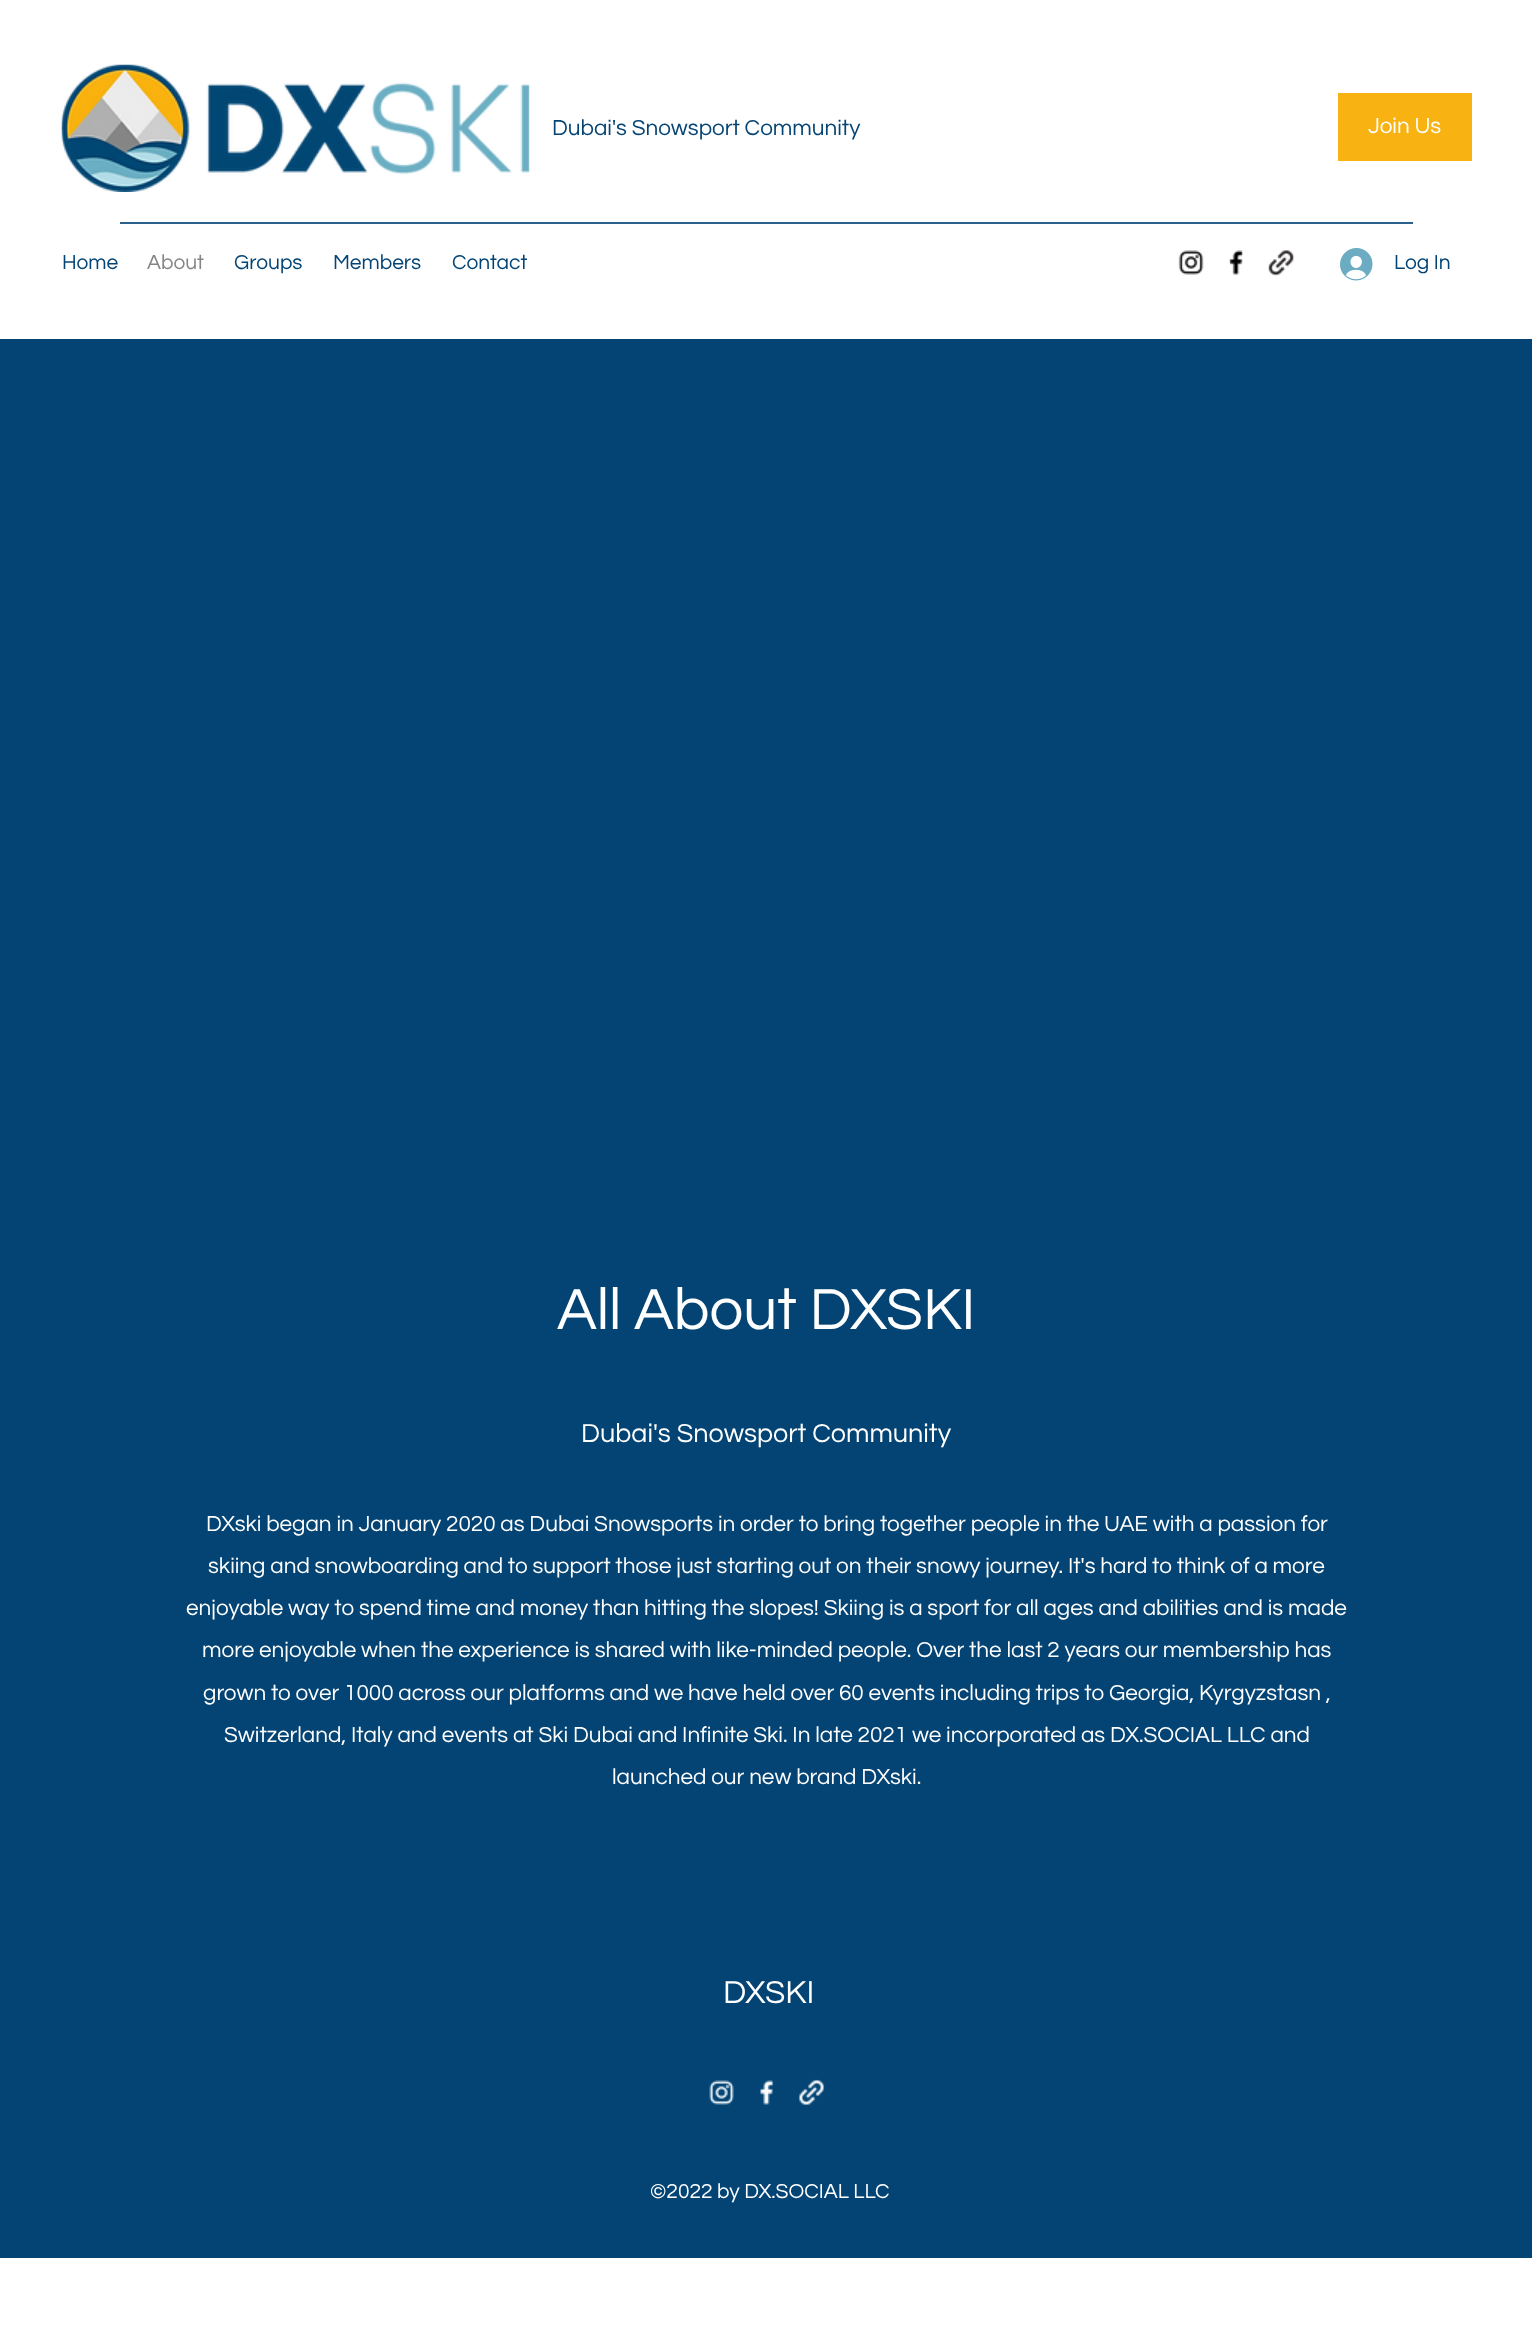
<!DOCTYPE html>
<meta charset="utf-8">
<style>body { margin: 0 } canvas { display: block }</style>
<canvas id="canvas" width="1532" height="2326"></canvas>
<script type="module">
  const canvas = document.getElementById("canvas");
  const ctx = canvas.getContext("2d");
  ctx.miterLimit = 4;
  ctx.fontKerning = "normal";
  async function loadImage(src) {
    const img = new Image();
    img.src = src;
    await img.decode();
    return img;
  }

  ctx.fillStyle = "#ffffff";
  ctx.fillRect(0, 0, 1532, 2326);
  ctx.drawImage(await loadImage("img1.png"), 61, 64, 469, 128);
  ctx.font = "22.5px Questrial";
  ctx.fillStyle = "#044474";
  ctx.fillText("Dubai's Snowsport Community", 552, 135);
  ctx.fillStyle = "#f8b313";
  ctx.fillRect(1338, 93, 134, 68);
  ctx.fillStyle = "#ffffff";
  ctx.fillText("Join Us", 1368, 133);
  ctx.fillStyle = "#2a6089";
  ctx.fillRect(120, 222, 1293, 2);
  ctx.font = "21px Questrial";
  ctx.fillStyle = "#044474";
  ctx.fillText("Home", 62, 269);
  ctx.fillStyle = "#838684";
  ctx.fillText("About", 147, 269);
  ctx.fillStyle = "#044474";
  ctx.fillText("Groups", 234, 269);
  ctx.fillText("Members", 333, 269);
  ctx.fillText("Contact", 452, 269);
  ctx.drawImage(await loadImage("img2.png"), 1178, 250, 26, 25);
  ctx.drawImage(await loadImage("img3.png"), 1229, 250, 14, 25);
  ctx.drawImage(await loadImage("img4.png"), 1268, 250, 27, 26);
  ctx.drawImage(await loadImage("img5.png"), 1340, 248, 33, 33);
  ctx.fillText("Log In", 1394, 269);
  ctx.fillRect(0, 339, 1532, 1919);
  ctx.font = "60px Questrial";
  ctx.fillStyle = "#ffffff";
  ctx.fillText("All About DXSKI", 557, 1329);
  ctx.font = "27px Questrial";
  ctx.fillText("Dubai's Snowsport Community", 581, 1442);
  ctx.font = "22.5px Questrial";
  ctx.fillText("DXski began in January 2020 as Dubai Snowsports in order to bring together people in the UAE with a passion for", 206, 1531);
  ctx.fillText("skiing and snowboarding and to support those just starting out on their snowy journey. It's hard to think of a more", 208, 1573);
  ctx.fillText("enjoyable way to spend time and money than hitting the slopes! Skiing is a sport for all ages and abilities and is made", 186, 1615);
  ctx.fillText("more enjoyable when the experience is shared with like-minded people. Over the last 2 years our membership has", 202, 1657);
  ctx.fillText("grown to over 1000 across our platforms and we have held over 60 events including trips to Georgia, Kyrgyzstasn ,", 203, 1700);
  ctx.fillText("Switzerland, Italy and events at Ski Dubai and Infinite Ski. In late 2021 we incorporated as DX.SOCIAL LLC and", 224, 1742);
  ctx.fillText("launched our new brand DXski.", 612, 1784);
  ctx.font = "33px Questrial";
  ctx.fillText("DXSKI", 723, 2003);
  ctx.drawImage(await loadImage("img6.png"), 709, 2080, 25, 25);
  ctx.drawImage(await loadImage("img7.png"), 760, 2080, 14, 25);
  ctx.drawImage(await loadImage("img8.png"), 798, 2079, 27, 27);
  ctx.font = "21px Questrial";
  ctx.fillText("©2022 by DX.SOCIAL LLC", 650, 2198);
</script>
